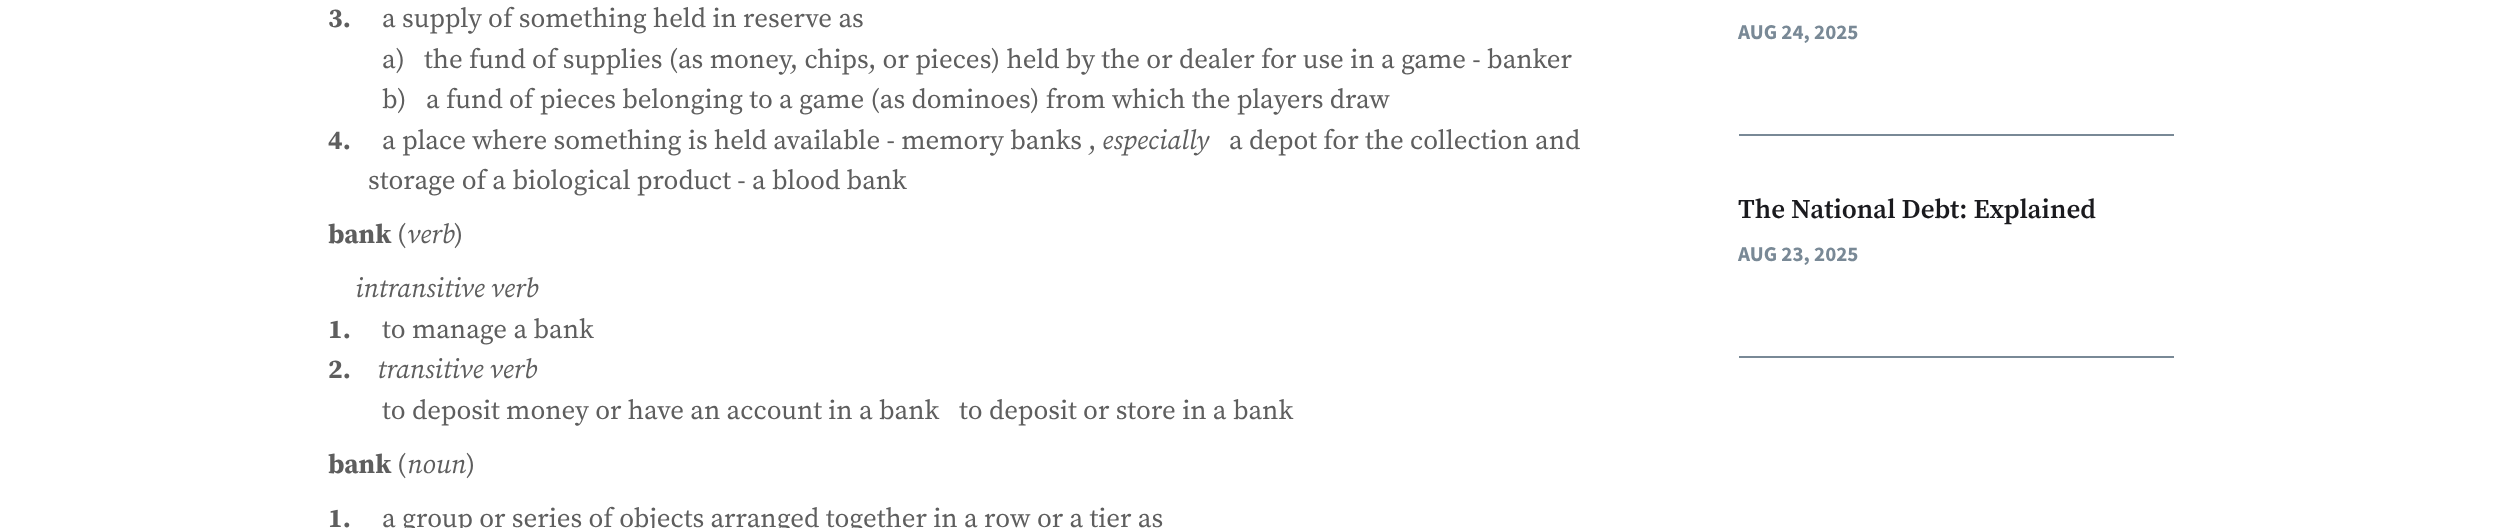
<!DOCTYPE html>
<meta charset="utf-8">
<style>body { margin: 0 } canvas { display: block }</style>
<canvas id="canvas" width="2515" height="528"></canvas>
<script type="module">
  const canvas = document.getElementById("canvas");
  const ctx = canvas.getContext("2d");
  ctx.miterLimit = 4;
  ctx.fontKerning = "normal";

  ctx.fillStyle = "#ffffff";
  ctx.fillRect(0, 0, 2515, 528);
  ctx.font = "bold 27px Source Serif Pro";
  ctx.fillStyle = "#5e5e5e";
  ctx.fillText("3.", 328, 27);
  ctx.font = "27px Source Serif Pro";
  ctx.fillText("a supply of something held in reserve as", 382, 27);
  ctx.fillText("a)", 382, 68);
  ctx.fillText("the fund of supplies (as money, chips, or pieces) held by the or dealer for use in a game - banker", 424, 68);
  ctx.fillText("b)", 382, 108);
  ctx.fillText("a fund of pieces belonging to a game (as dominoes) from which the players draw", 426, 108);
  ctx.font = "bold 27px Source Serif Pro";
  ctx.fillText("4.", 328, 149);
  ctx.font = "27px Source Serif Pro";
  ctx.fillText("a place where something is held available - memory banks ,", 382, 149);
  ctx.font = "italic 27px Source Serif Pro";
  ctx.fillText("especially", 1102, 149);
  ctx.font = "27px Source Serif Pro";
  ctx.fillText("a depot for the collection and", 1229, 149);
  ctx.fillText("storage of a biological product - a blood bank", 368, 189);
  ctx.font = "bold 27px Source Serif Pro";
  ctx.fillText("bank", 328, 243);
  ctx.font = "27px Source Serif Pro";
  ctx.fillText("(", 397, 243);
  ctx.font = "italic 27px Source Serif Pro";
  ctx.fillText("verb", 407, 243);
  ctx.font = "27px Source Serif Pro";
  ctx.fillText(")", 454, 243);
  ctx.font = "italic 27px Source Serif Pro";
  ctx.fillText("intransitive verb", 355, 297);
  ctx.font = "bold 27px Source Serif Pro";
  ctx.fillText("1.", 328, 338);
  ctx.font = "27px Source Serif Pro";
  ctx.fillText("to manage a bank", 382, 338);
  ctx.font = "bold 27px Source Serif Pro";
  ctx.fillText("2.", 328, 378);
  ctx.font = "italic 27px Source Serif Pro";
  ctx.fillText("transitive verb", 377, 378);
  ctx.font = "27px Source Serif Pro";
  ctx.fillText("to deposit money or have an account in a bank", 382, 419);
  ctx.fillText("to deposit or store in a bank", 959, 419);
  ctx.font = "bold 27px Source Serif Pro";
  ctx.fillText("bank", 328, 473);
  ctx.font = "27px Source Serif Pro";
  ctx.fillText("(", 397, 473);
  ctx.font = "italic 27px Source Serif Pro";
  ctx.fillText("noun", 407, 473);
  ctx.font = "27px Source Serif Pro";
  ctx.fillText(")", 466, 473);
  ctx.font = "bold 27px Source Serif Pro";
  ctx.fillText("1.", 328, 527);
  ctx.font = "27px Source Serif Pro";
  ctx.fillText("a group or series of objects arranged together in a row or a tier as", 382, 527);
  ctx.fillStyle = "#798996";
  ctx.fillRect(1739, 134, 435, 2);
  ctx.font = "bold 21px Source Sans Pro";
  ctx.fillText("AUG 24, 2025", 1738, 39);
  ctx.fillRect(1739, 356, 435, 2);
  ctx.font = "600 27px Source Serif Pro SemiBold";
  ctx.fillStyle = "#1a1a1e";
  ctx.fillText("The National Debt: Explained", 1738, 218);
  ctx.font = "bold 21px Source Sans Pro";
  ctx.fillStyle = "#798996";
  ctx.fillText("AUG 23, 2025", 1738, 261);
</script>
